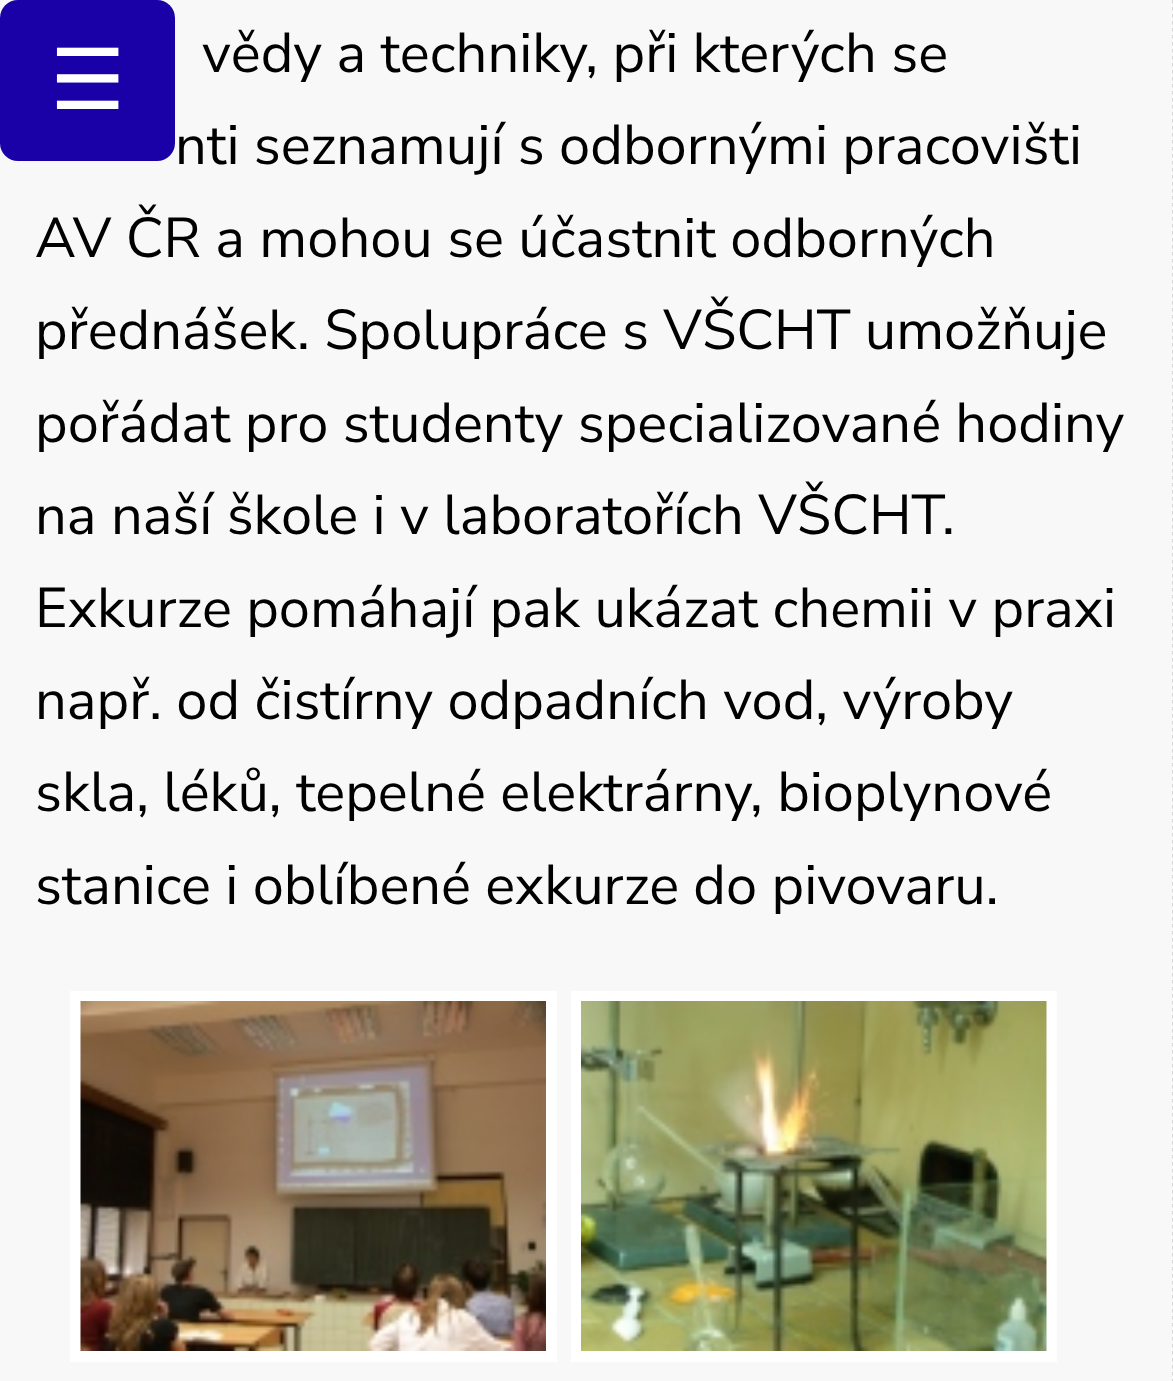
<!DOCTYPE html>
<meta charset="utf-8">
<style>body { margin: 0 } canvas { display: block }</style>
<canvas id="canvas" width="1173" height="1381"></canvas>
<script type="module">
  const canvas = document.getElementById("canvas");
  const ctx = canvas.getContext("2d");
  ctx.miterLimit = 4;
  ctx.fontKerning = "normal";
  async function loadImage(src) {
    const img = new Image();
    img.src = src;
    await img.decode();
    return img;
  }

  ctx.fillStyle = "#f8f8f8";
  ctx.fillRect(0, 0, 1173, 1381);
  ctx.beginPath();
  ctx.moveTo(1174, -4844);
  ctx.lineTo(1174, 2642.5);
  ctx.strokeStyle = "#cccccc";
  ctx.lineWidth = 3.5;
  ctx.setLineDash([3.5, 3.5]);
  ctx.stroke();
  ctx.font = "56px Nunito Sans";
  ctx.fillStyle = "#000000";
  ctx.fillText("vědy a techniky, při kterých se", 202, 72);
  ctx.fillText("nti seznamují s odbornými pracovišti", 175, 164);
  ctx.fillText("AV ČR a mohou se účastnit odborných", 35, 257);
  ctx.fillText("přednášek. Spolupráce s VŠCHT umožňuje", 35, 349);
  ctx.fillText("pořádat pro studenty specializované hodiny", 35, 442);
  ctx.fillText("na naší škole i v laboratořích VŠCHT.", 35, 534);
  ctx.fillText("Exkurze pomáhají pak ukázat chemii v praxi", 35, 627);
  ctx.fillText("např. od čistírny odpadních vod, výroby", 35, 719);
  ctx.fillText("skla, léků, tepelné elektrárny, bioplynové", 35, 811);
  ctx.fillText("stanice i oblíbené exkurze do pivovaru.", 35, 904);
  ctx.strokeStyle = "#ffffff";
  ctx.lineWidth = 11;
  ctx.setLineDash([]);
  ctx.strokeRect(75.5, 996.5, 476, 360);
  ctx.strokeRect(576.5, 996.5, 475, 360);
  ctx.drawImage(await loadImage("img1.png"), 80, 1001, 466, 350);
  ctx.drawImage(await loadImage("img2.png"), 581, 1001, 466, 350);
  ctx.fillStyle = "#1900a7";
  ctx.beginPath();
  ctx.roundRect(0, 0, 175, 161, 18);
  ctx.fill();
  ctx.font = "84px DejaVu Sans";
  ctx.fillStyle = "#ffffff";
  ctx.fillText("☰", 50, 109);
</script>
